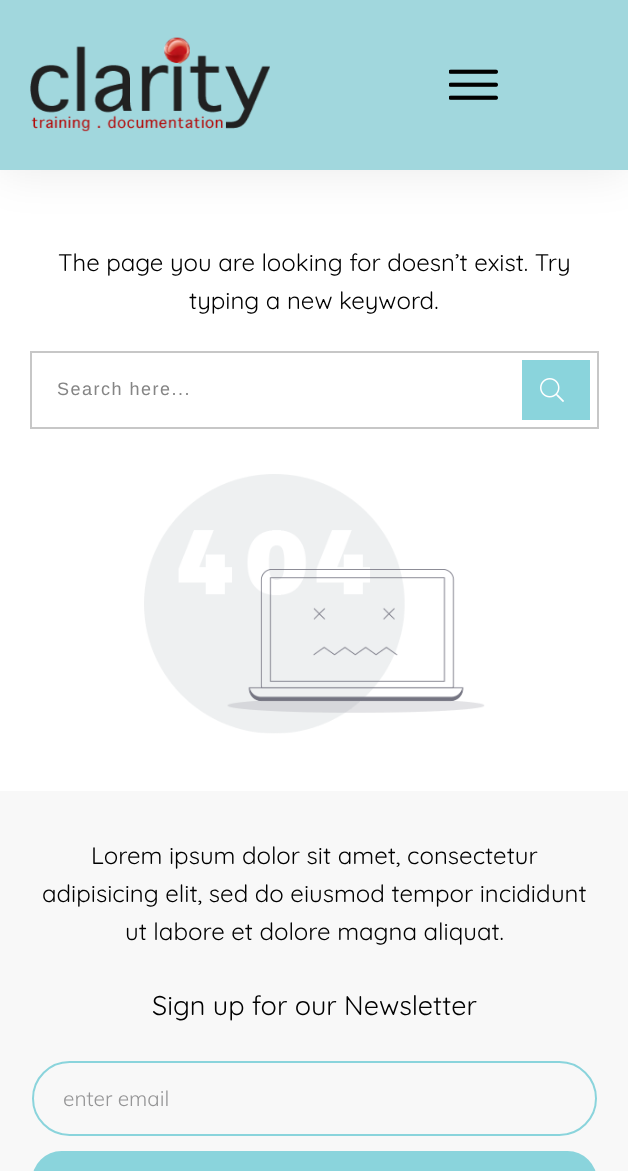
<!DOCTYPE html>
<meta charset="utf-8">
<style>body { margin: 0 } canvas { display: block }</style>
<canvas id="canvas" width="628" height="1171"></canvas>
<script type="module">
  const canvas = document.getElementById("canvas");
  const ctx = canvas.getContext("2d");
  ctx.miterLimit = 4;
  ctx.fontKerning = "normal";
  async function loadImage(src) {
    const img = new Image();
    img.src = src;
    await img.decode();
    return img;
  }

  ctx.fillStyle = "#ffffff";
  ctx.fillRect(0, 0, 628, 1171);
  ctx.fillStyle = "rgba(0, 0, 0, 0.08)";
  ctx.filter = "blur(22.5px)";
  ctx.beginPath();
  ctx.rect(0, 3, 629, 170);
  ctx.fill();
  ctx.filter = "none";
  ctx.fillStyle = "#a1d7dd";
  ctx.fillRect(0, 0, 628, 170);
  ctx.drawImage(await loadImage("img1.png"), 30, 37, 240, 95);
  ctx.drawImage(await loadImage("img2.png"), 449, 69, 49, 31);
  ctx.font = "24px Quicksand";
  ctx.fillStyle = "#000000";
  ctx.fillText("The page you are looking for doesn’t exist. Try", 58, 271);
  ctx.fillText("typing a new keyword.", 189, 309);
  ctx.strokeStyle = "#c7c7c7";
  ctx.lineWidth = 2;
  ctx.strokeRect(31, 352, 567, 76);
  ctx.letterSpacing = "1.5px";
  ctx.font = "18px Liberation Sans";
  ctx.fillStyle = "#858585";
  ctx.fillText("Search here...", 57, 395);
  ctx.fillStyle = "#8ad4dc";
  ctx.fillRect(522, 360, 68, 60);
  ctx.drawImage(await loadImage("img3.png"), 540, 378, 24, 24);
  ctx.drawImage(await loadImage("img4.png"), 144, 474, 341, 260);
  ctx.fillStyle = "#f8f8f8";
  ctx.fillRect(0, 791, 628, 380);
  ctx.letterSpacing = "0px";
  ctx.font = "24px Quicksand";
  ctx.fillStyle = "#000000";
  ctx.fillText("Lorem ipsum dolor sit amet, consectetur", 91, 864);
  ctx.fillText("adipisicing elit, sed do eiusmod tempor incididunt", 42, 902);
  ctx.fillText("ut labore et dolore magna aliquat.", 125, 940);
  ctx.font = "27px Quicksand";
  ctx.fillText("Sign up for our Newsletter", 152, 1015);
  ctx.beginPath();
  ctx.roundRect(33, 1062, 563, 73, 36.5);
  ctx.strokeStyle = "#8ad4dc";
  ctx.stroke();
  ctx.font = "300 21px Muli";
  ctx.fillStyle = "#959596";
  ctx.fillText("enter email", 63, 1106);
  ctx.fillStyle = "#8ad4dc";
  ctx.beginPath();
  ctx.roundRect(32, 1151, 565, 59, 39);
  ctx.fill();
</script>
